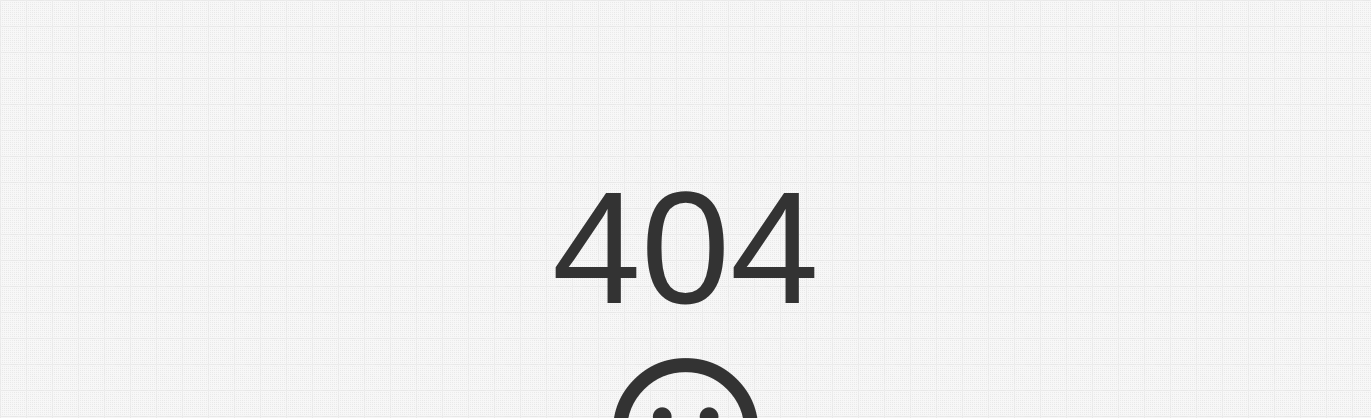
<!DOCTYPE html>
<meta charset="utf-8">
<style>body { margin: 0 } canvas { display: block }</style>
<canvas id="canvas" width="1371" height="418"></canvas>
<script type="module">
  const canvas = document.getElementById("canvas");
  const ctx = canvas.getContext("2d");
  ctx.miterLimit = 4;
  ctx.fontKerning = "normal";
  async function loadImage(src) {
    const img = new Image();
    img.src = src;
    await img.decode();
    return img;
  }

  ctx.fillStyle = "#ffffff";
  ctx.fillRect(0, 0, 1371, 418);
  ctx.drawImage(await loadImage("img1.png"), 0, 0, 1371, 418);
  ctx.font = "160px Liberation Sans";
  ctx.fillStyle = "#333333";
  ctx.fillText("404", 552, 303);
  ctx.drawImage(await loadImage("img2.png"), 614, 358, 144, 60);
</script>
